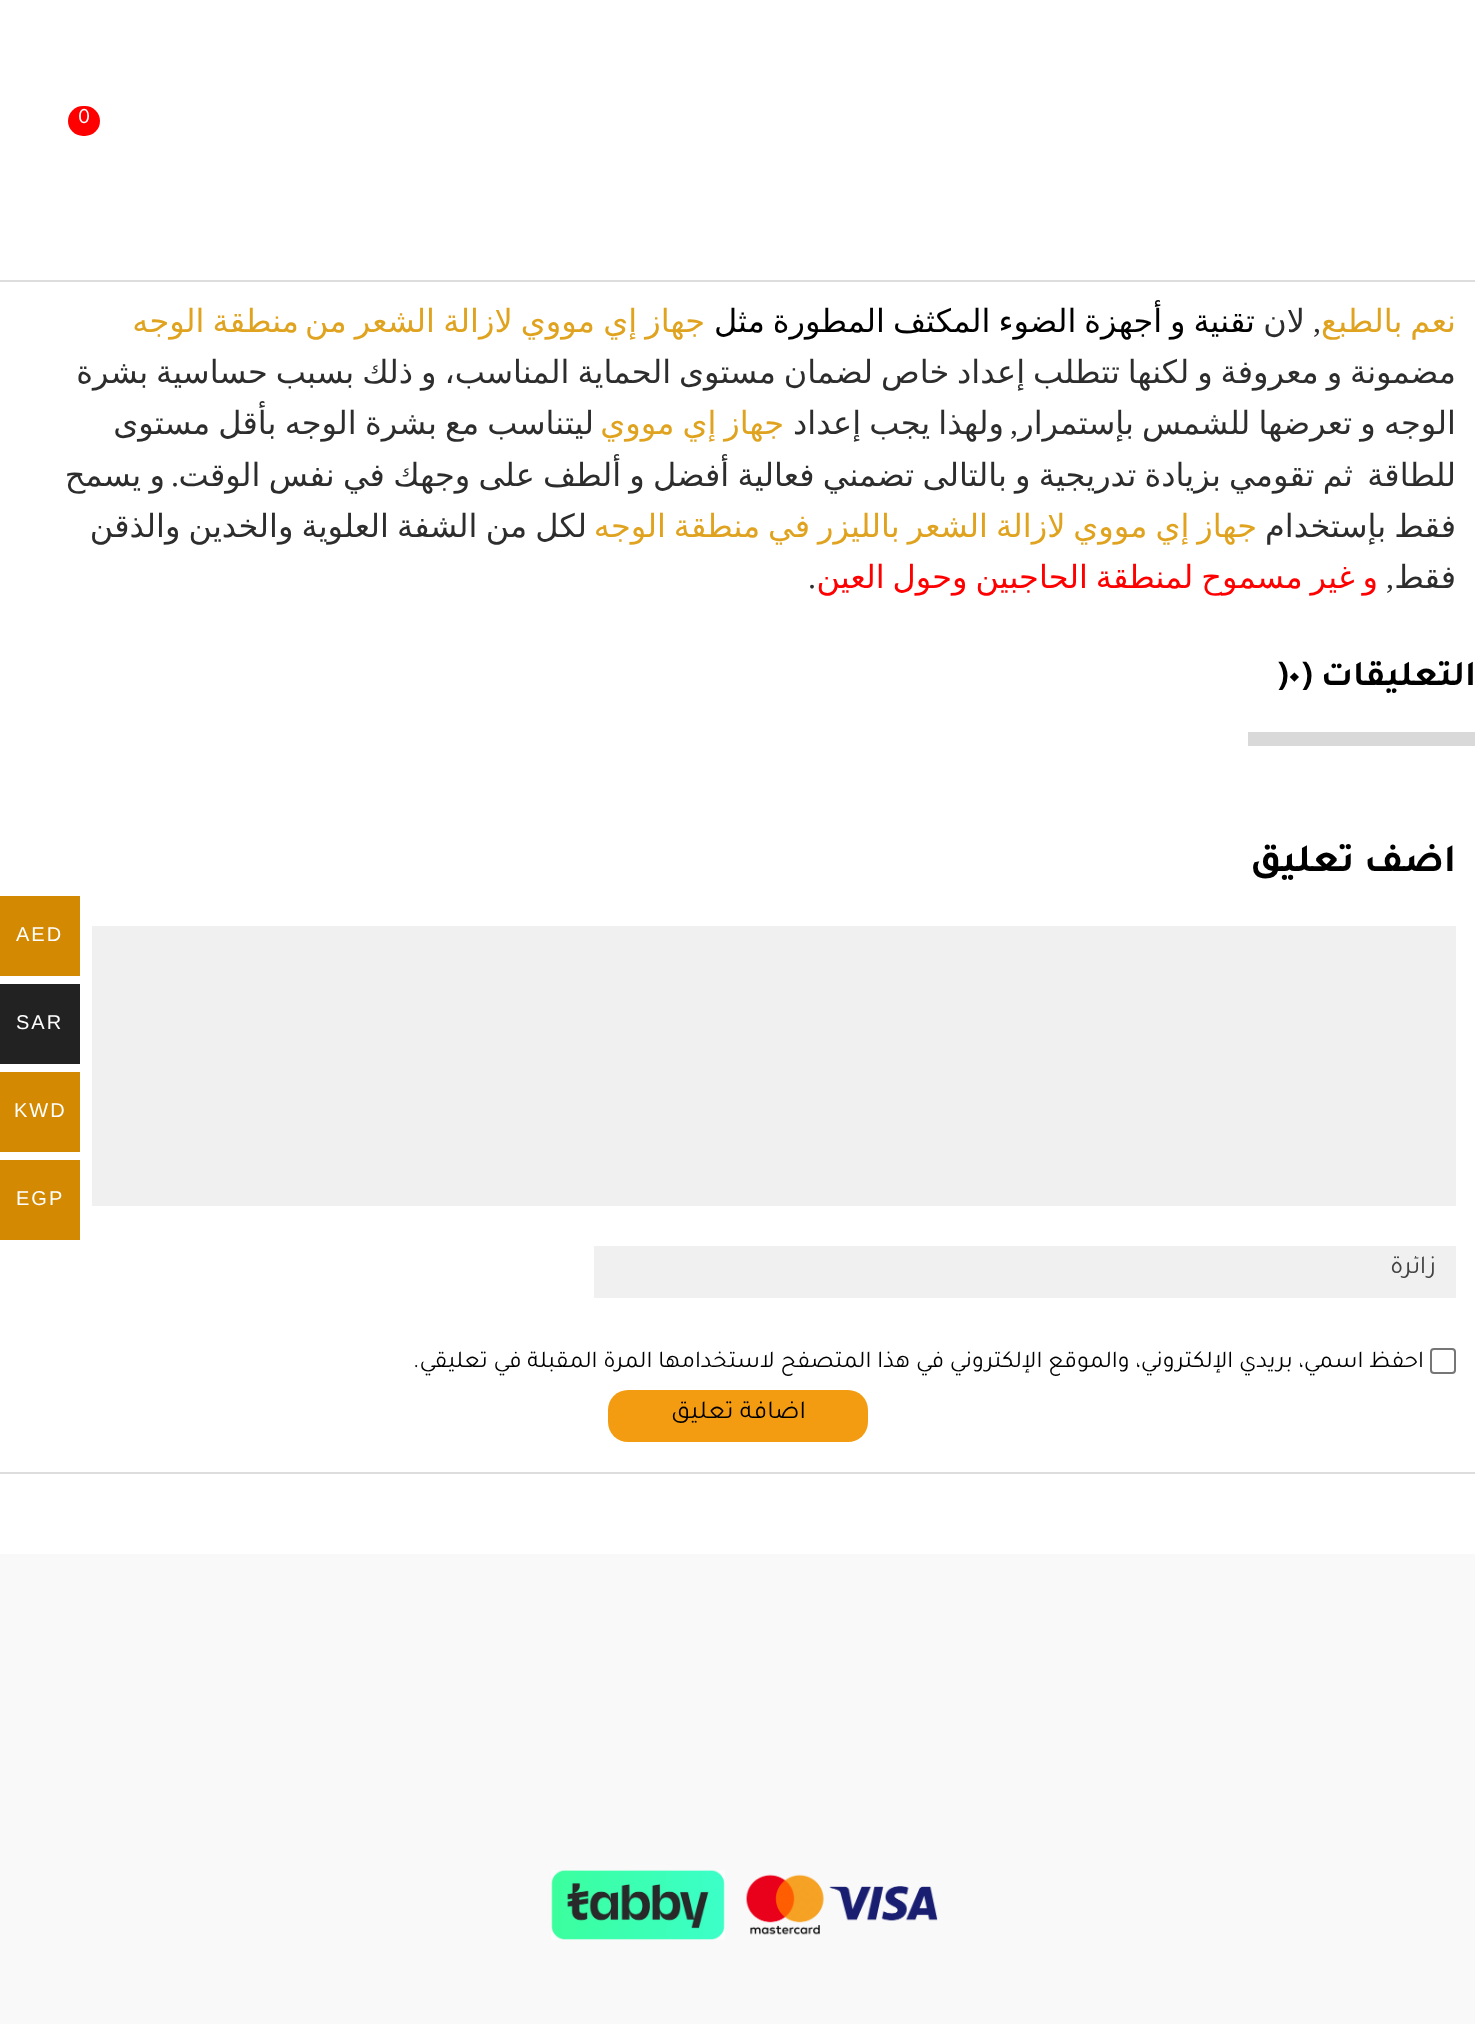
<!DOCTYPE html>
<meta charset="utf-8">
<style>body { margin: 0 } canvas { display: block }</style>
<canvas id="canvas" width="1475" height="2024"></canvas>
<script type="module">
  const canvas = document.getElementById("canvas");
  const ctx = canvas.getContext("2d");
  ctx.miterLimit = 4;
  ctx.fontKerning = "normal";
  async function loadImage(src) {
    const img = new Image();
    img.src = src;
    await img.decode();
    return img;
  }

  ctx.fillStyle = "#ffffff";
  ctx.fillRect(0, 0, 1475, 2024);
  ctx.fillStyle = "#dddddd";
  ctx.fillRect(0, 280, 1475, 2);
  ctx.fillStyle = "#ff0000";
  ctx.beginPath();
  ctx.roundRect(68, 106, 32, 30, 15);
  ctx.fill();
  ctx.font = "22px Tajawal";
  ctx.fillStyle = "#ffffff";
  ctx.fillText("0", 78, 123);
  ctx.wordSpacing = "-2.25px";
  ctx.direction = "rtl";
  ctx.font = "32px DejaVu Sans";
  ctx.fillStyle = "#e0a31f";
  ctx.fillText("نعم بالطبع", 1456, 332);
  ctx.wordSpacing = "0px";
  ctx.font = "32px Liberation Serif";
  ctx.fillStyle = "#2d2d2d";
  ctx.fillText(",", 1321, 332);
  ctx.font = "32px DejaVu Sans";
  ctx.fillText("لان", 1305, 332);
  ctx.wordSpacing = "-2.25px";
  ctx.fillStyle = "#000000";
  ctx.fillText("تقنیة و أجهزة الضوء المكثف المطورة مثل", 1255, 332);
  ctx.wordSpacing = "-2px";
  ctx.fillStyle = "#e0a31f";
  ctx.fillText("جهاز إي مووي لازالة الشعر من", 705, 332);
  ctx.fillText("منطقة الوجه", 299, 332);
  ctx.wordSpacing = "-2.25px";
  ctx.fillStyle = "#2d2d2d";
  ctx.fillText("مضمونة و معروفة و لكنها تتطلب إعداد خاص لضمان مستوى الحمایة المناسب، و ذلك بسبب حساسیة بشرة", 1456, 383);
  ctx.wordSpacing = "-2px";
  ctx.fillText("الوجه و تعرضھا للشمس بإستمرار", 1456, 434);
  ctx.wordSpacing = "0px";
  ctx.font = "32px Liberation Serif";
  ctx.fillText(",", 1018, 434);
  ctx.wordSpacing = "-2px";
  ctx.font = "32px DejaVu Sans";
  ctx.fillText("ولھذا یجب إعداد", 1004, 434);
  ctx.wordSpacing = "-2.25px";
  ctx.fillStyle = "#e0a31f";
  ctx.fillText("جھاز إي مووي", 784, 434);
  ctx.wordSpacing = "-2px";
  ctx.fillStyle = "#2d2d2d";
  ctx.fillText("لیتناسب مع بشرة الوجه بأقل مستوى", 594, 434);
  ctx.wordSpacing = "0px";
  ctx.fillText("للطاقة", 1456, 486);
  ctx.wordSpacing = "-1.9px";
  ctx.fillText("ثم تقومي بزیادة تدریجیة و بالتالى تضمني فعالية أفضل و ألطف على وجھك في نفس الوقت", 1353, 486);
  ctx.wordSpacing = "0px";
  ctx.font = "32px Liberation Serif";
  ctx.fillText(".", 179, 486);
  ctx.wordSpacing = "-1.9px";
  ctx.font = "32px DejaVu Sans";
  ctx.fillText("و یسمح", 165, 486);
  ctx.wordSpacing = "-2.25px";
  ctx.fillText("فقط بإستخدام", 1456, 537);
  ctx.fillStyle = "#e0a31f";
  ctx.fillText("جھاز إي مووي لازالة الشعر بالليزر في منطقة الوجه", 1257, 537);
  ctx.wordSpacing = "-2px";
  ctx.fillStyle = "#2d2d2d";
  ctx.fillText("لكل من الشفة العلویة والخدین والذقن", 587, 537);
  ctx.wordSpacing = "0px";
  ctx.fillText("فقط", 1456, 588);
  ctx.font = "32px Liberation Serif";
  ctx.fillText(",", 1394, 588);
  ctx.wordSpacing = "-2.25px";
  ctx.font = "32px DejaVu Sans";
  ctx.fillStyle = "#ff0000";
  ctx.fillText("و غیر مسموح لمنطقة الحاجبین وحول العین", 1378, 588);
  ctx.wordSpacing = "0px";
  ctx.direction = "ltr";
  ctx.font = "32px Liberation Serif";
  ctx.fillStyle = "#2d2d2d";
  ctx.fillText(".", 808, 588);
  ctx.fillStyle = "#d9d9d9";
  ctx.fillRect(1248, 732, 227, 14);
  ctx.direction = "rtl";
  ctx.font = "bold 36px Tajawal";
  ctx.fillStyle = "#000000";
  ctx.fillText("التعليقات (", 1476, 685);
  ctx.direction = "ltr";
  ctx.fillText(")٠", 1277, 685);
  ctx.fillStyle = "#dddddd";
  ctx.fillRect(0, 1472, 1475, 2);
  ctx.direction = "rtl";
  ctx.font = "bold 40px Tajawal";
  ctx.fillStyle = "#000000";
  ctx.fillText("اضف تعليق", 1456, 871);
  ctx.fillStyle = "#f0f0f0";
  ctx.fillRect(92, 926, 1364, 280);
  ctx.fillRect(594, 1246, 862, 52);
  ctx.save();
  ctx.beginPath();
  ctx.rect(614, 1256, 822, 32);
  ctx.clip();
  ctx.font = "26px Tajawal";
  ctx.fillStyle = "#424242";
  ctx.fillText("زائرة", 1436, 1273);
  ctx.restore();
  ctx.beginPath();
  ctx.roundRect(1431, 1349, 24, 24, 3);
  ctx.strokeStyle = "#767676";
  ctx.lineWidth = 2;
  ctx.stroke();
  ctx.font = "24px Tajawal";
  ctx.fillStyle = "#000000";
  ctx.fillText("احفظ اسمي، بريدي الإلكتروني، والموقع الإلكتروني في هذا المتصفح لاستخدامها المرة المقبلة في تعليقي.", 1424, 1367);
  ctx.fillStyle = "#f39c12";
  ctx.beginPath();
  ctx.roundRect(608, 1390, 260, 52, 20);
  ctx.fill();
  ctx.font = "26px Tajawal";
  ctx.fillStyle = "#000000";
  ctx.fillText("اضافة تعليق", 806, 1418);
  ctx.fillStyle = "#f9f9f9";
  ctx.fillRect(0, 1554, 1475, 470);
  ctx.drawImage(await loadImage("img1.png"), 746, 1874, 192, 61);
  ctx.drawImage(await loadImage("img2.png"), 551, 1870, 174, 70);
  ctx.fillStyle = "#d38902";
  ctx.fillRect(0, 896, 80, 80);
  ctx.letterSpacing = "2px";
  ctx.direction = "ltr";
  ctx.font = "20px Liberation Sans";
  ctx.fillStyle = "#ffffff";
  ctx.fillText("AED", 16, 941);
  ctx.fillStyle = "#222222";
  ctx.fillRect(0, 984, 80, 80);
  ctx.fillStyle = "#ffffff";
  ctx.fillText("SAR", 16, 1029);
  ctx.fillStyle = "#d38902";
  ctx.fillRect(0, 1072, 80, 80);
  ctx.fillStyle = "#ffffff";
  ctx.fillText("KWD", 14, 1117);
  ctx.fillStyle = "#d38902";
  ctx.fillRect(0, 1160, 80, 80);
  ctx.fillStyle = "#ffffff";
  ctx.fillText("EGP", 16, 1205);
</script>
